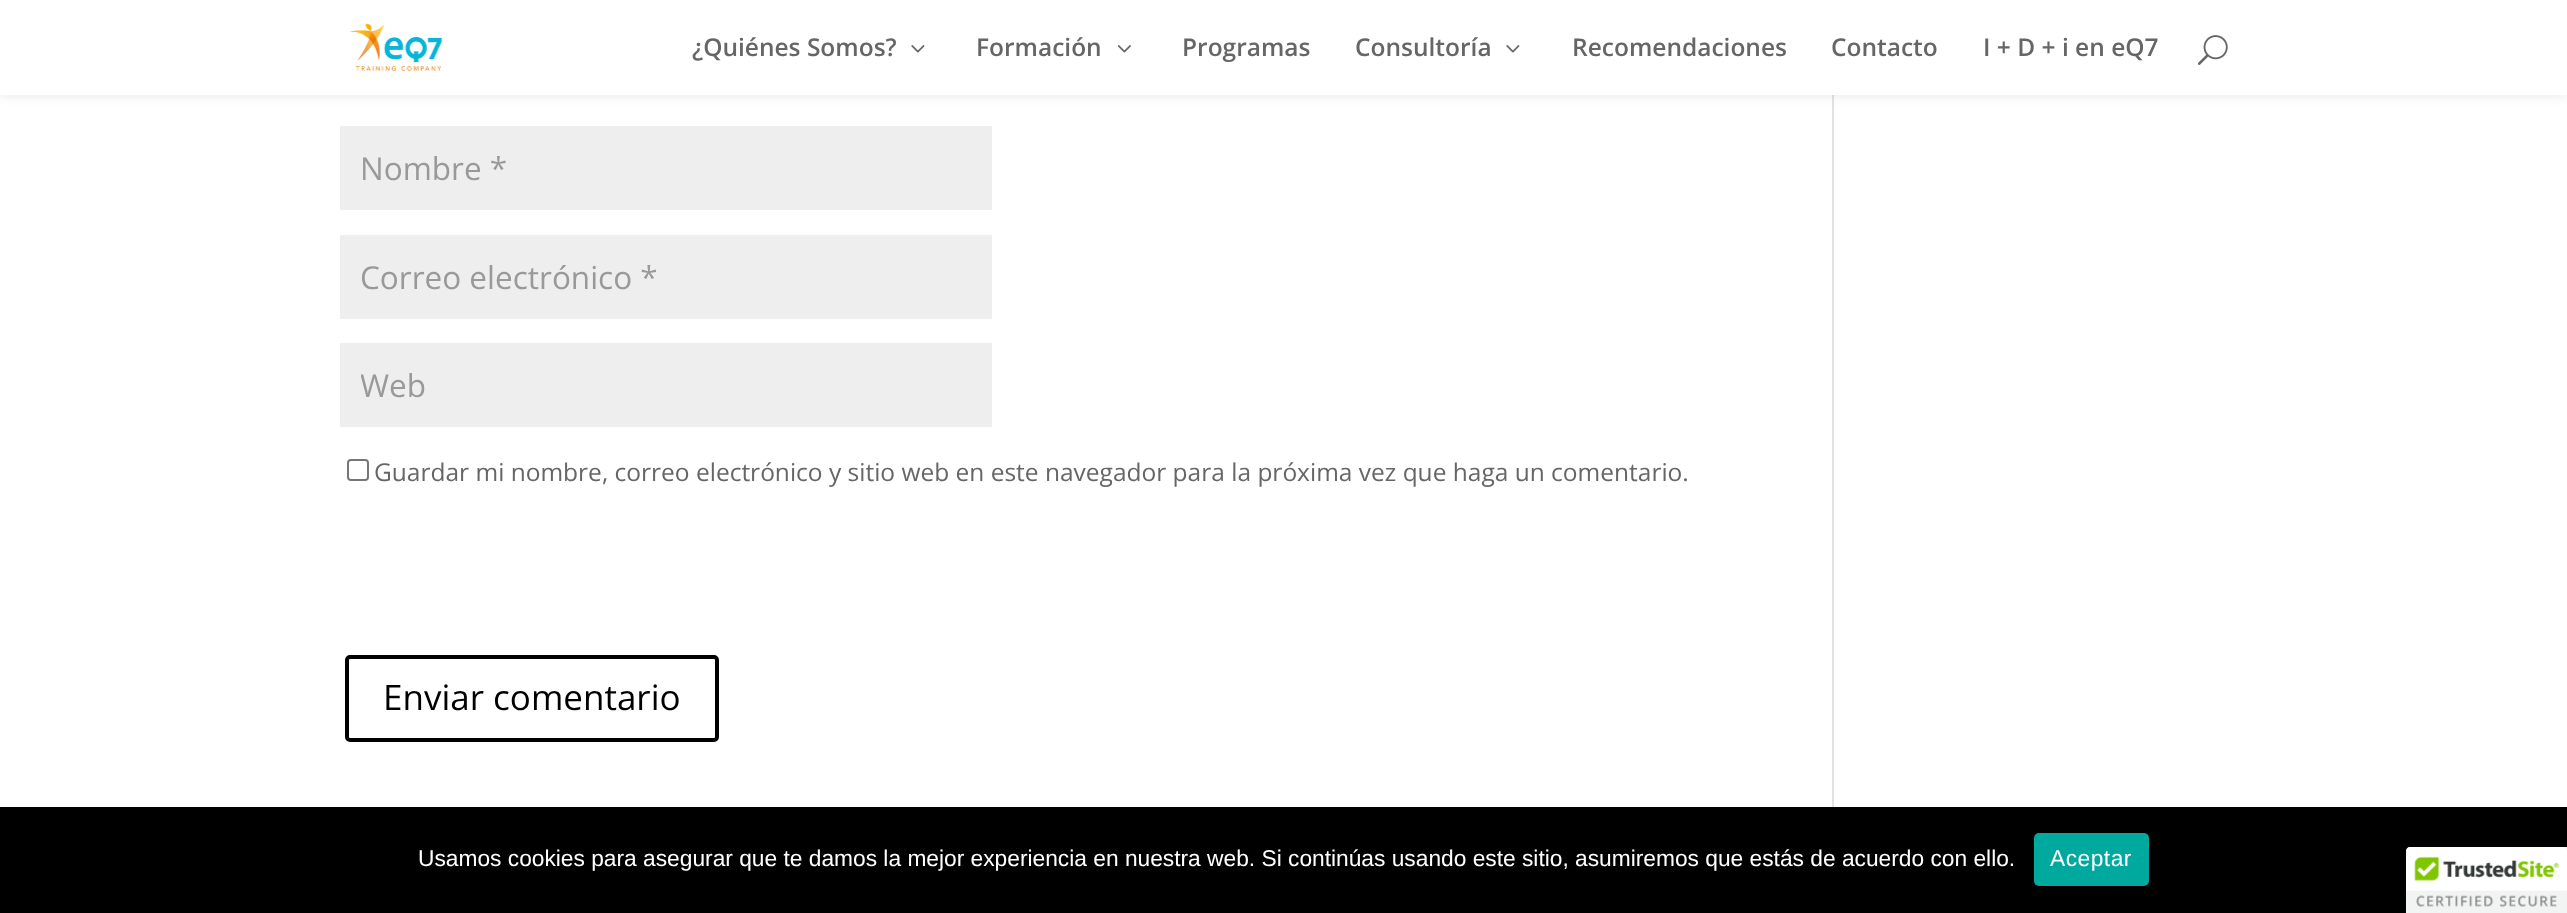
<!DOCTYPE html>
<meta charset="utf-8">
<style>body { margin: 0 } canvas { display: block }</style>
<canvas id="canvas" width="2567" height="913"></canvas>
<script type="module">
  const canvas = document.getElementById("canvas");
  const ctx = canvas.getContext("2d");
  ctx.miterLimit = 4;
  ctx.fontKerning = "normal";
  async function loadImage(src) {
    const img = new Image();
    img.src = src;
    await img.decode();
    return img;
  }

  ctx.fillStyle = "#ffffff";
  ctx.fillRect(0, 0, 2567, 913);
  ctx.fillStyle = "#e2e2e2";
  ctx.fillRect(1832, 95, 2, 712);
  ctx.fillStyle = "rgba(0, 0, 0, 0.1)";
  ctx.filter = "blur(6px)";
  ctx.beginPath();
  ctx.rect(0, 0, 2567, 95);
  ctx.fill();
  ctx.filter = "none";
  ctx.fillStyle = "#ffffff";
  ctx.fillRect(0, 0, 2567, 95);
  ctx.drawImage(await loadImage("img1.png"), 349, 23, 93, 48);
  ctx.font = "600 24.5px Open Sans";
  ctx.fillStyle = "#666666";
  ctx.fillText("¿Quiénes Somos?", 692, 56);
  ctx.drawImage(await loadImage("img2.png"), 911, 45, 14, 8);
  ctx.fillText("Formación", 976, 56);
  ctx.drawImage(await loadImage("img3.png"), 1117, 45, 14, 8);
  ctx.fillText("Programas", 1182, 56);
  ctx.fillText("Consultoría", 1355, 56);
  ctx.drawImage(await loadImage("img2.png"), 1506, 45, 14, 8);
  ctx.fillText("Recomendaciones", 1572, 56);
  ctx.fillText("Contacto", 1831, 56);
  ctx.fillText("I + D + i en eQ7", 1983, 56);
  ctx.drawImage(await loadImage("img4.png"), 2197, 35, 31, 30);
  ctx.fillStyle = "#eeeeee";
  ctx.fillRect(340, 126, 652, 84);
  ctx.font = "31.5px Open Sans";
  ctx.fillStyle = "#999999";
  ctx.fillText("Nombre *", 360, 180);
  ctx.fillStyle = "#eeeeee";
  ctx.fillRect(340, 235, 652, 84);
  ctx.fillStyle = "#999999";
  ctx.fillText("Correo electrónico *", 360, 289);
  ctx.fillStyle = "#eeeeee";
  ctx.fillRect(340, 343, 652, 84);
  ctx.save();
  ctx.beginPath();
  ctx.rect(361, 364, 610, 42);
  ctx.clip();
  ctx.fillStyle = "#999999";
  ctx.fillText("Web", 360, 397);
  ctx.restore();
  ctx.beginPath();
  ctx.roundRect(348, 460, 20, 20, 3);
  ctx.strokeStyle = "#767676";
  ctx.lineWidth = 2;
  ctx.stroke();
  ctx.font = "24.5px Open Sans";
  ctx.fillStyle = "#666666";
  ctx.fillText("Guardar mi nombre, correo electrónico y sitio web en este navegador para la próxima vez que haga un comentario.", 374, 481);
  ctx.beginPath();
  ctx.roundRect(347, 657, 370, 83, 3);
  ctx.strokeStyle = "#000000";
  ctx.lineWidth = 4;
  ctx.stroke();
  ctx.font = "35px Open Sans";
  ctx.fillStyle = "#000000";
  ctx.fillText("Enviar comentario", 383, 710);
  ctx.fillRect(0, 807, 2567, 106);
  ctx.font = "22.75px Liberation Sans";
  ctx.fillStyle = "#ffffff";
  ctx.fillText("Usamos cookies para asegurar que te damos la mejor experiencia en nuestra web. Si continúas usando este sitio, asumiremos que estás de acuerdo con ello.", 418, 866);
  ctx.fillStyle = "#00a99d";
  ctx.beginPath();
  ctx.roundRect(2034, 833, 115, 53, 5);
  ctx.fill();
  ctx.letterSpacing = "0.5px";
  ctx.fillStyle = "#ffffff";
  ctx.fillText("Aceptar", 2050, 866);
  ctx.beginPath();
  ctx.moveTo(2410, 847);
  ctx.lineTo(2567, 847);
  ctx.lineTo(2567, 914);
  ctx.lineTo(2406, 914);
  ctx.lineTo(2406, 851);
  ctx.bezierCurveTo(2406, 849, 2408, 847, 2410, 847);
  ctx.closePath();
  ctx.fill();
  ctx.drawImage(await loadImage("img5.png"), 2406, 847, 161, 66);
</script>
